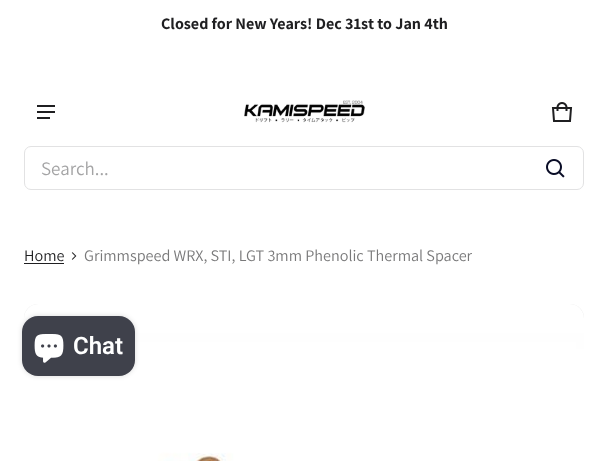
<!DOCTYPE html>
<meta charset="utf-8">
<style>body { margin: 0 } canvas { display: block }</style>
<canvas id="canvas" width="608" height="461"></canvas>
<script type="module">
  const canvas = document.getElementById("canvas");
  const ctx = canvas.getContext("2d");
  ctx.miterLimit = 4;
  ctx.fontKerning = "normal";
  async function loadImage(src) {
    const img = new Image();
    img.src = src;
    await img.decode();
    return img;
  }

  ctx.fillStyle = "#ffffff";
  ctx.fillRect(0, 0, 608, 461);
  ctx.font = "bold 16.15px Assistant";
  ctx.fillStyle = "#1f1f21";
  ctx.fillText("Closed for New Years! Dec 31st to Jan 4th", 161, 29);
  ctx.fillRect(37, 105, 18, 2);
  ctx.fillRect(37, 111, 18, 2);
  ctx.fillRect(37, 117, 13, 2);
  ctx.drawImage(await loadImage("img1.png"), 244, 100, 121, 23);
  ctx.drawImage(await loadImage("img2.png"), 551, 102, 22, 20);
  ctx.beginPath();
  ctx.roundRect(24.5, 146.5, 559, 43, 6.5);
  ctx.strokeStyle = "#e2e2e3";
  ctx.stroke();
  ctx.font = "19px Assistant";
  ctx.fillStyle = "#a4a4a5";
  ctx.fillText("Search...", 41, 175);
  ctx.drawImage(await loadImage("img3.png"), 546, 159, 19, 19);
  ctx.font = "16.15px Assistant";
  ctx.fillStyle = "#1f1f21";
  ctx.fillText("Home", 24, 261);
  ctx.fillRect(24, 263, 40, 1);
  ctx.drawImage(await loadImage("img4.png"), 71, 252, 6, 8);
  ctx.fillStyle = "#79797a";
  ctx.fillText("Grimmspeed WRX, STI, LGT 3mm Phenolic Thermal Spacer", 84, 261);
  ctx.fillStyle = "#efefef";
  ctx.beginPath();
  ctx.roundRect(24, 304, 560, 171, 14);
  ctx.fill();
  ctx.drawImage(await loadImage("img5.png"), 24, 304, 560, 157);
  ctx.fillStyle = "rgba(0, 0, 0, 0.15)";
  ctx.filter = "blur(2.5px)";
  ctx.beginPath();
  ctx.roundRect(22, 316, 113, 60, 16);
  ctx.fill();
  ctx.filter = "none";
  ctx.fillStyle = "#3f414b";
  ctx.beginPath();
  ctx.roundRect(22, 316, 113, 60, 16);
  ctx.fill();
  ctx.drawImage(await loadImage("img6.png"), 34, 334, 30, 29);
  ctx.font = "600 24px Roboto";
  ctx.fillStyle = "#ffffff";
  ctx.fillText("Chat", 73, 354);
</script>
